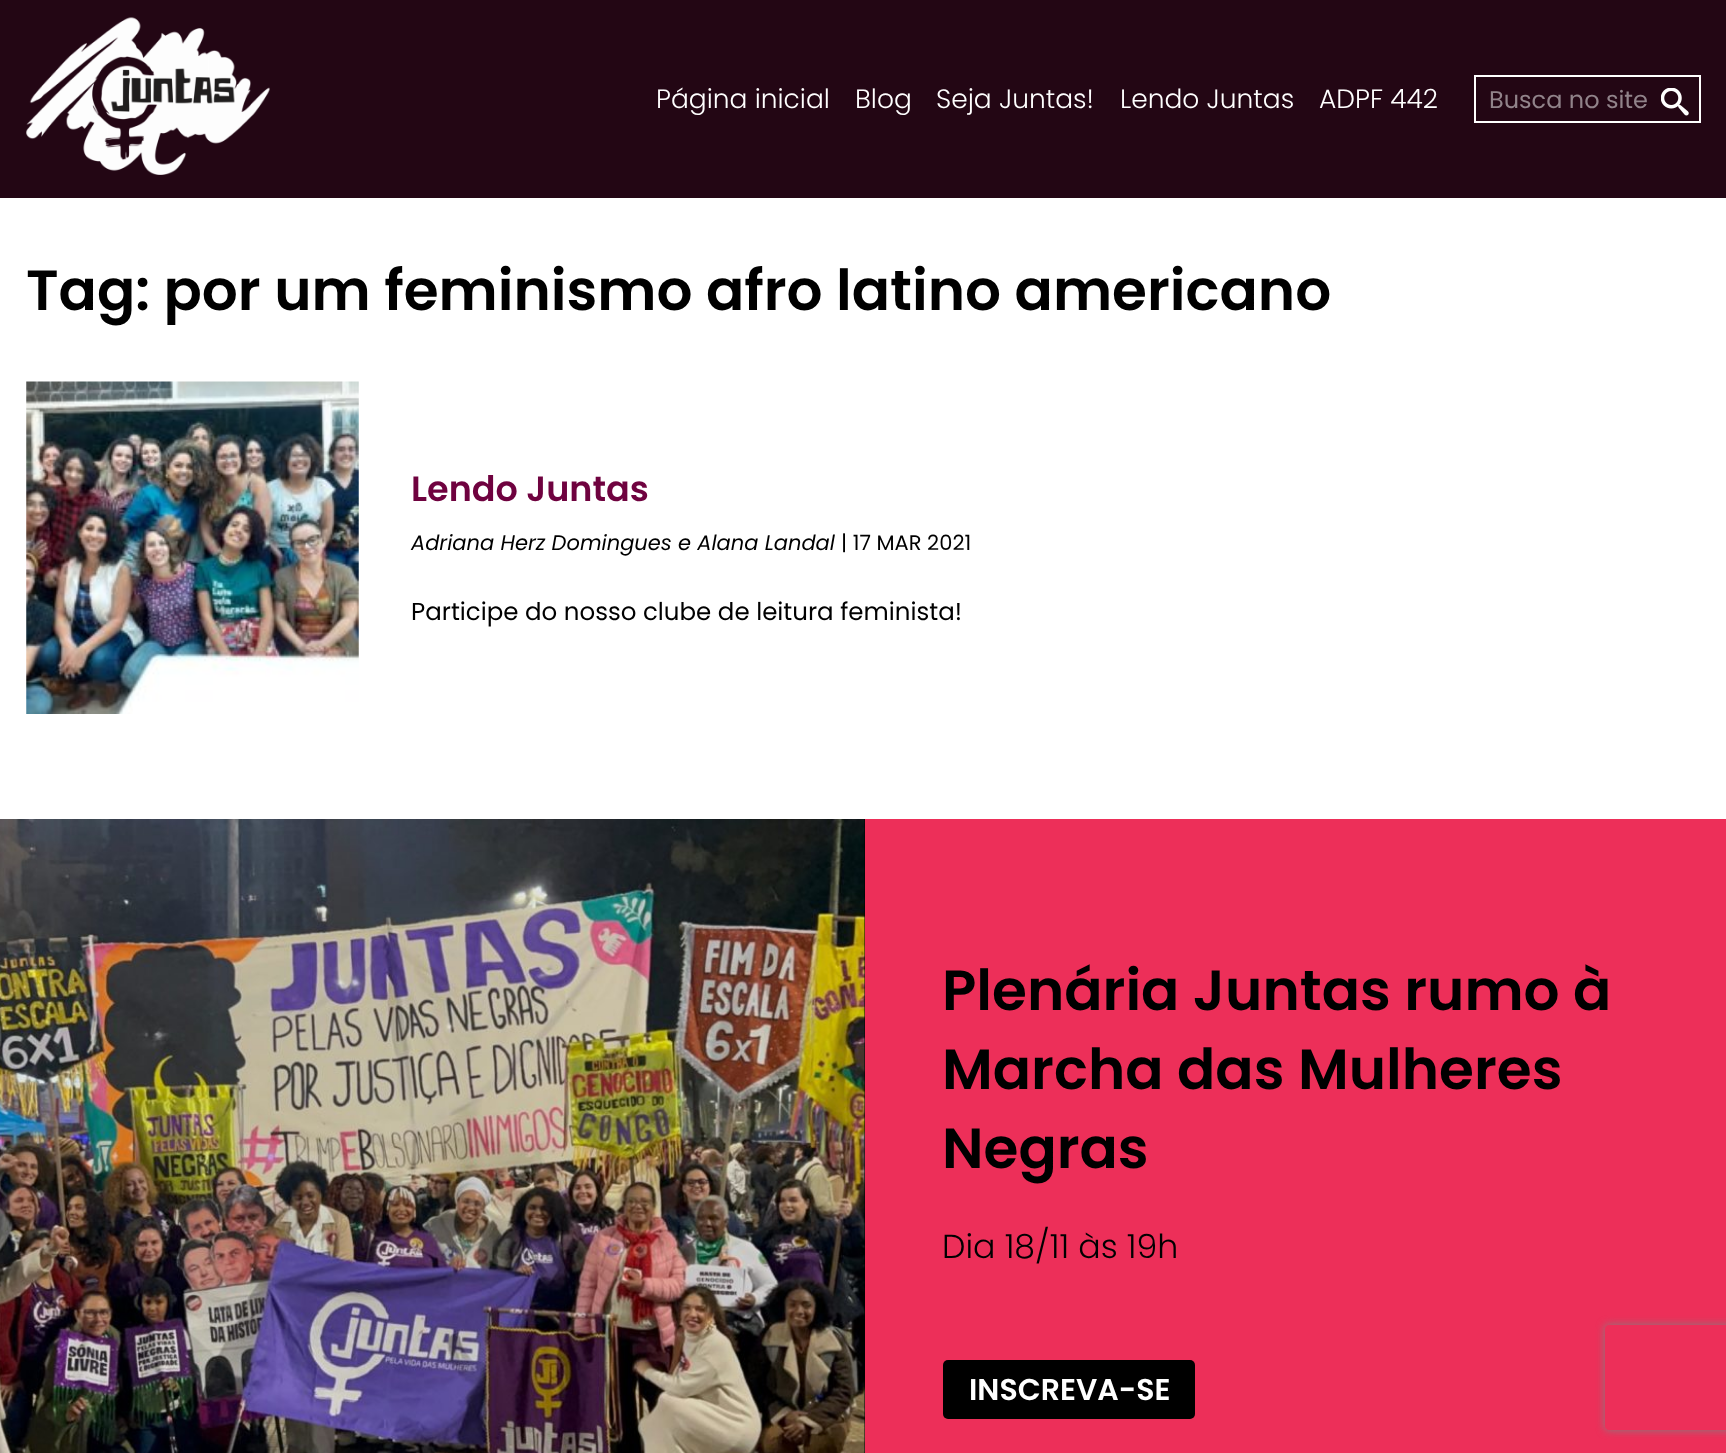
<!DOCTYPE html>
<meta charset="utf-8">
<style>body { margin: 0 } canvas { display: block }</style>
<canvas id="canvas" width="1726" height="1453"></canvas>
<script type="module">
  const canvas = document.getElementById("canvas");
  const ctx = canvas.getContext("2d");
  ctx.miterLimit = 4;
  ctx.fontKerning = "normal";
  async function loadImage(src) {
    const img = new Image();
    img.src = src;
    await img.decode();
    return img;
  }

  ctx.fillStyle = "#ffffff";
  ctx.fillRect(0, 0, 1726, 1453);
  ctx.fillStyle = "#230614";
  ctx.fillRect(0, 0, 1726, 198);
  ctx.drawImage(await loadImage("img1.png"), 26, 17, 244, 158);
  ctx.font = "300 26.5px Poppins";
  ctx.fillStyle = "#ffffff";
  ctx.fillText("Página inicial", 656, 108);
  ctx.fillText("Blog", 855, 108);
  ctx.fillText("Seja Juntas!", 936, 108);
  ctx.fillText("Lendo Juntas", 1120, 108);
  ctx.fillText("ADPF 442", 1319, 108);
  ctx.strokeStyle = "#ffffff";
  ctx.lineWidth = 2;
  ctx.strokeRect(1475, 76, 225, 46);
  ctx.font = "24px Poppins";
  ctx.fillStyle = "#91838a";
  ctx.fillText("Busca no site", 1489, 108);
  ctx.drawImage(await loadImage("img2.png"), 1661, 88, 28, 28);
  ctx.font = "600 56.5px Poppins";
  ctx.fillStyle = "#000000";
  ctx.fillText("Tag: por um feminismo afro latino americano", 26, 310);
  ctx.drawImage(await loadImage("img3.png"), 26, 381, 333, 333);
  ctx.font = "600 35px Poppins";
  ctx.fillStyle = "#6f023f";
  ctx.fillText("Lendo Juntas", 411, 501);
  ctx.font = "italic 21px Poppins";
  ctx.fillStyle = "#000000";
  ctx.fillText("Adriana Herz Domingues e Alana Landal", 411, 550);
  ctx.font = "21px Poppins";
  ctx.fillText("| 17 MAR 2021", 841, 550);
  ctx.font = "24.5px Poppins";
  ctx.fillText("Participe do nosso clube de leitura feminista!", 411, 620);
  ctx.fillStyle = "#ed2f59";
  ctx.fillRect(865, 819, 861, 634);
  ctx.fillStyle = "#000000";
  ctx.fillRect(864, 819, 1, 634);
  ctx.drawImage(await loadImage("img4.png"), 0, 819, 865, 634);
  ctx.font = "600 56.5px Poppins";
  ctx.fillText("Plenária Juntas rumo à", 942, 1010);
  ctx.fillText("Marcha das Mulheres", 942, 1089);
  ctx.fillText("Negras", 942, 1168);
  ctx.font = "300 33.25px Poppins";
  ctx.fillText("Dia 18/11 às 19h", 942, 1258);
  ctx.beginPath();
  ctx.roundRect(943, 1360, 252, 59, 5);
  ctx.fill();
  ctx.font = "600 30px Poppins";
  ctx.fillStyle = "#ffffff";
  ctx.fillText("INSCREVA-SE", 969, 1400);
  ctx.save();
  ctx.beginPath();
  ctx.moveTo(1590, 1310);
  ctx.lineTo(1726, 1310);
  ctx.lineTo(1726, 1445);
  ctx.lineTo(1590, 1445);
  ctx.closePath();
  ctx.moveTo(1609, 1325);
  ctx.lineTo(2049, 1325);
  ctx.bezierCurveTo(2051, 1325, 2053, 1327, 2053, 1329);
  ctx.lineTo(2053, 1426);
  ctx.bezierCurveTo(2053, 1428, 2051, 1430, 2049, 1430);
  ctx.lineTo(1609, 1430);
  ctx.bezierCurveTo(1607, 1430, 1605, 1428, 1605, 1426);
  ctx.lineTo(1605, 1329);
  ctx.bezierCurveTo(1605, 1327, 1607, 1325, 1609, 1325);
  ctx.closePath();
  ctx.clip("evenodd");
  ctx.fillStyle = "#808080";
  ctx.filter = "blur(4.5px)";
  ctx.beginPath();
  ctx.roundRect(1605, 1325, 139, 105, 4);
  ctx.fill();
  ctx.filter = "none";
  ctx.restore();
</script>
